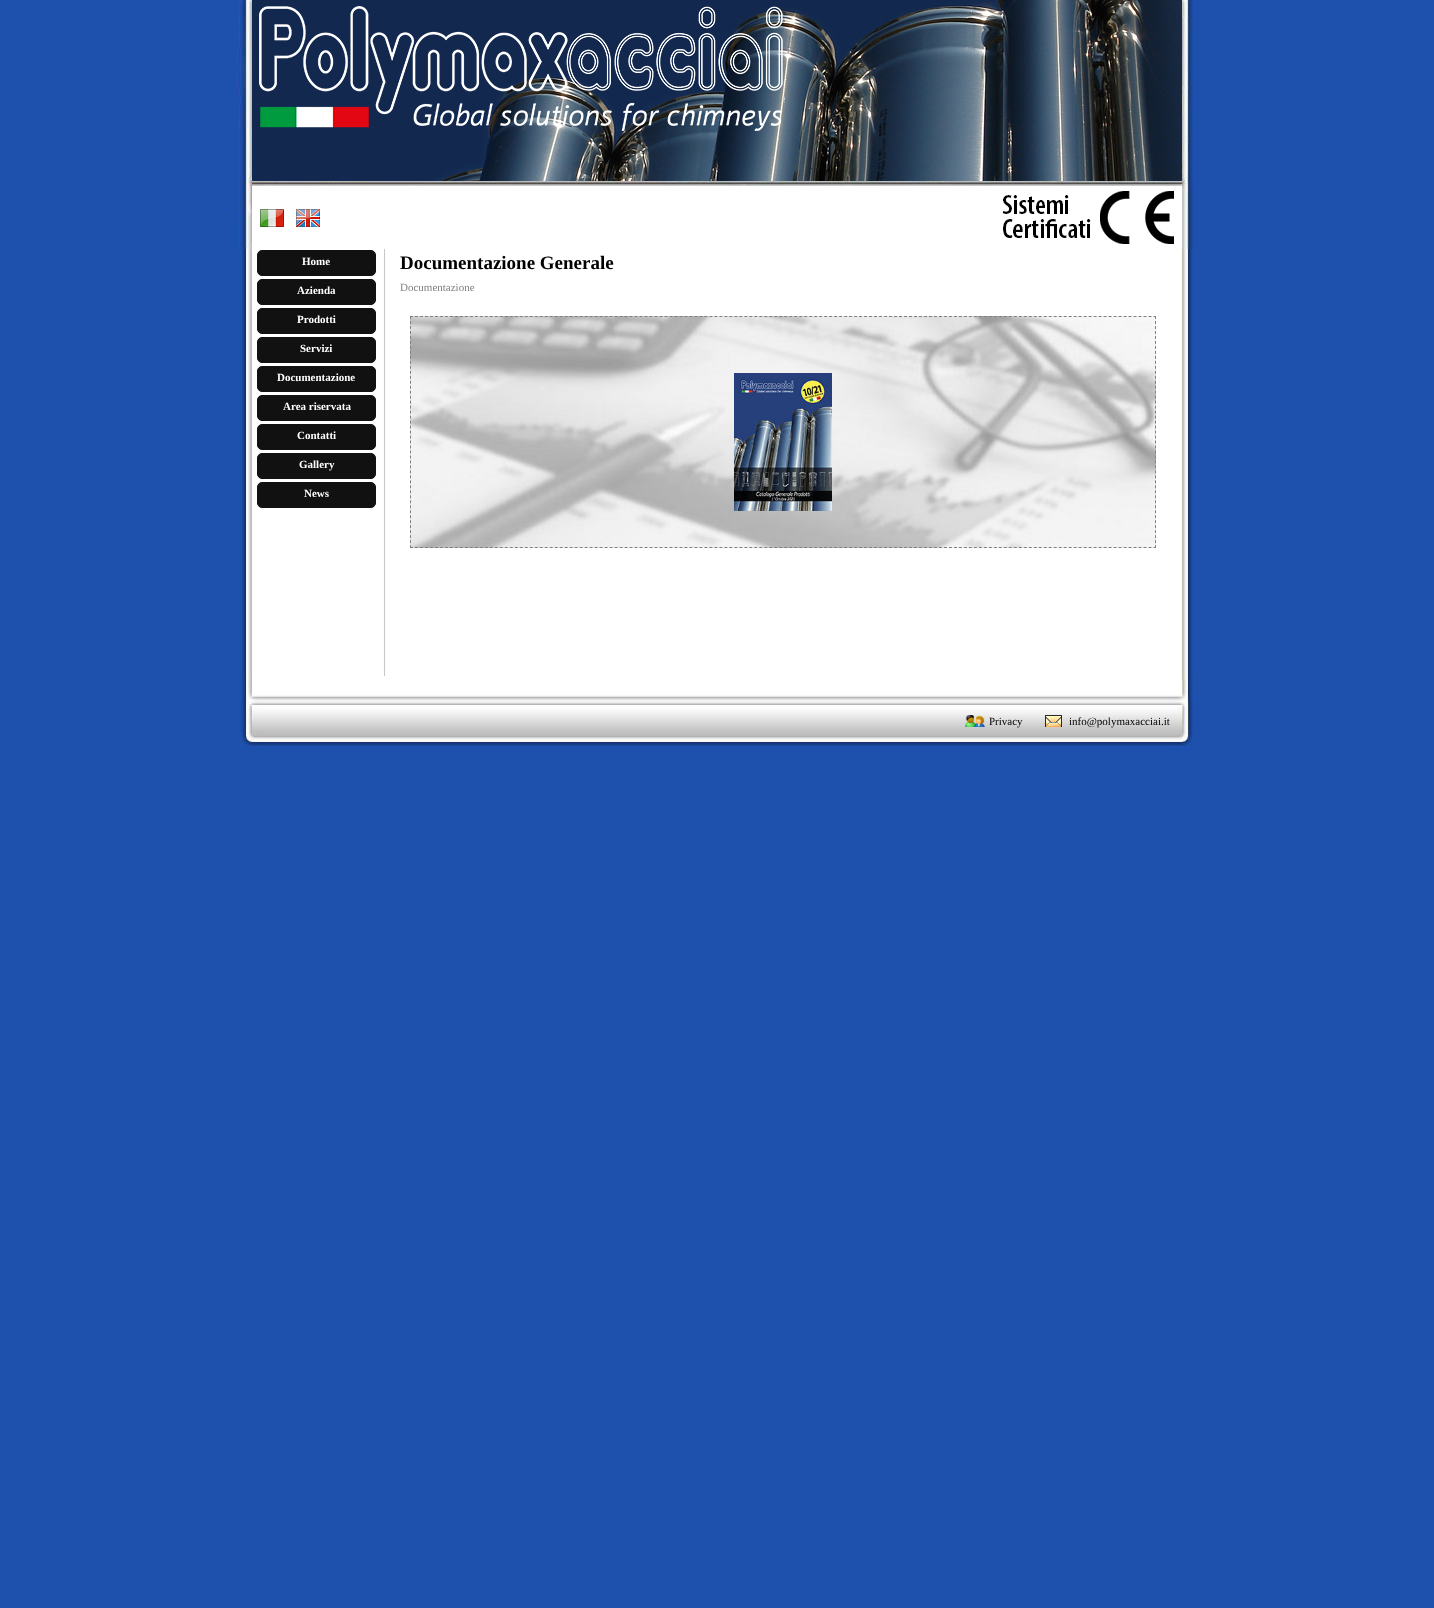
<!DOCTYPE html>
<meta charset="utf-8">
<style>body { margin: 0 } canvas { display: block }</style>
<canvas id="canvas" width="1434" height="1608"></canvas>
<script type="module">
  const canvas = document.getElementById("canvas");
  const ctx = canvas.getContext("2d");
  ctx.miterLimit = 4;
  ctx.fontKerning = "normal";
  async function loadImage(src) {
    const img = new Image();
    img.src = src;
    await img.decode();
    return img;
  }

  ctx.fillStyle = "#1e51ae";
  ctx.fillRect(0, 0, 1434, 1608);
  ctx.drawImage(await loadImage("img1.png"), 238, 0, 958, 249);
  ctx.drawImage(await loadImage("img2.png"), 242, 249, 951, 427);
  ctx.drawImage(await loadImage("img3.png"), 260, 209, 24, 18);
  ctx.drawImage(await loadImage("img4.png"), 296, 209, 24, 18);
  ctx.fillStyle = "#111111";
  ctx.beginPath();
  ctx.roundRect(257.5, 250.5, 118, 25, 4.5);
  ctx.fill();
  ctx.strokeStyle = "#111111";
  ctx.stroke();
  ctx.font = "bold 11px Liberation Serif";
  ctx.fillStyle = "#ffffff";
  ctx.fillText("Home", 302, 265);
  ctx.fillStyle = "#111111";
  ctx.beginPath();
  ctx.roundRect(257.5, 279.5, 118, 25, 4.5);
  ctx.fill();
  ctx.stroke();
  ctx.fillStyle = "#ffffff";
  ctx.fillText("Azienda", 297, 294);
  ctx.fillStyle = "#111111";
  ctx.beginPath();
  ctx.roundRect(257.5, 308.5, 118, 25, 4.5);
  ctx.fill();
  ctx.stroke();
  ctx.fillStyle = "#ffffff";
  ctx.fillText("Prodotti", 297, 323);
  ctx.fillStyle = "#111111";
  ctx.beginPath();
  ctx.roundRect(257.5, 337.5, 118, 25, 4.5);
  ctx.fill();
  ctx.stroke();
  ctx.fillStyle = "#ffffff";
  ctx.fillText("Servizi", 300, 352);
  ctx.fillStyle = "#111111";
  ctx.beginPath();
  ctx.roundRect(257.5, 366.5, 118, 25, 4.5);
  ctx.fill();
  ctx.stroke();
  ctx.fillStyle = "#ffffff";
  ctx.fillText("Documentazione", 277, 381);
  ctx.fillStyle = "#111111";
  ctx.beginPath();
  ctx.roundRect(257.5, 395.5, 118, 25, 4.5);
  ctx.fill();
  ctx.stroke();
  ctx.fillStyle = "#ffffff";
  ctx.fillText("Area riservata", 283, 410);
  ctx.fillStyle = "#111111";
  ctx.beginPath();
  ctx.roundRect(257.5, 424.5, 118, 25, 4.5);
  ctx.fill();
  ctx.stroke();
  ctx.fillStyle = "#ffffff";
  ctx.fillText("Contatti", 297, 439);
  ctx.fillStyle = "#111111";
  ctx.beginPath();
  ctx.roundRect(257.5, 453.5, 118, 25, 4.5);
  ctx.fill();
  ctx.stroke();
  ctx.fillStyle = "#ffffff";
  ctx.fillText("Gallery", 299, 468);
  ctx.fillStyle = "#111111";
  ctx.beginPath();
  ctx.roundRect(257.5, 482.5, 118, 25, 4.5);
  ctx.fill();
  ctx.stroke();
  ctx.fillStyle = "#ffffff";
  ctx.fillText("News", 304, 497);
  ctx.font = "bold 19px Liberation Serif";
  ctx.fillStyle = "#000000";
  ctx.fillText("Documentazione Generale", 400, 269);
  ctx.font = "11px Liberation Serif";
  ctx.fillStyle = "#808080";
  ctx.fillText("Documentazione", 400, 291);
  ctx.drawImage(await loadImage("img5.png"), 410, 316, 746, 232);
  ctx.beginPath();
  ctx.moveTo(410, 316.5);
  ctx.lineTo(1156, 316.5);
  ctx.strokeStyle = "#808080";
  ctx.setLineDash([3, 1.99]);
  ctx.stroke();
  ctx.beginPath();
  ctx.moveTo(1155.5, 316);
  ctx.lineTo(1155.5, 548);
  ctx.setLineDash([3, 1.98]);
  ctx.stroke();
  ctx.beginPath();
  ctx.moveTo(410, 547.5);
  ctx.lineTo(1156, 547.5);
  ctx.setLineDash([3, 1.99]);
  ctx.stroke();
  ctx.beginPath();
  ctx.moveTo(410.5, 316);
  ctx.lineTo(410.5, 548);
  ctx.setLineDash([3, 1.98]);
  ctx.stroke();
  ctx.drawImage(await loadImage("img6.png"), 734, 373, 98, 138);
  ctx.drawImage(await loadImage("img7.png"), 238, 676, 958, 76);
  ctx.drawImage(await loadImage("img8.png"), 965, 715, 20, 12);
  ctx.fillStyle = "#000000";
  ctx.fillText("Privacy", 989, 725);
  ctx.drawImage(await loadImage("img9.png"), 1045, 715, 17, 12);
  ctx.fillText("info@polymaxacciai.it", 1069, 725);
</script>
